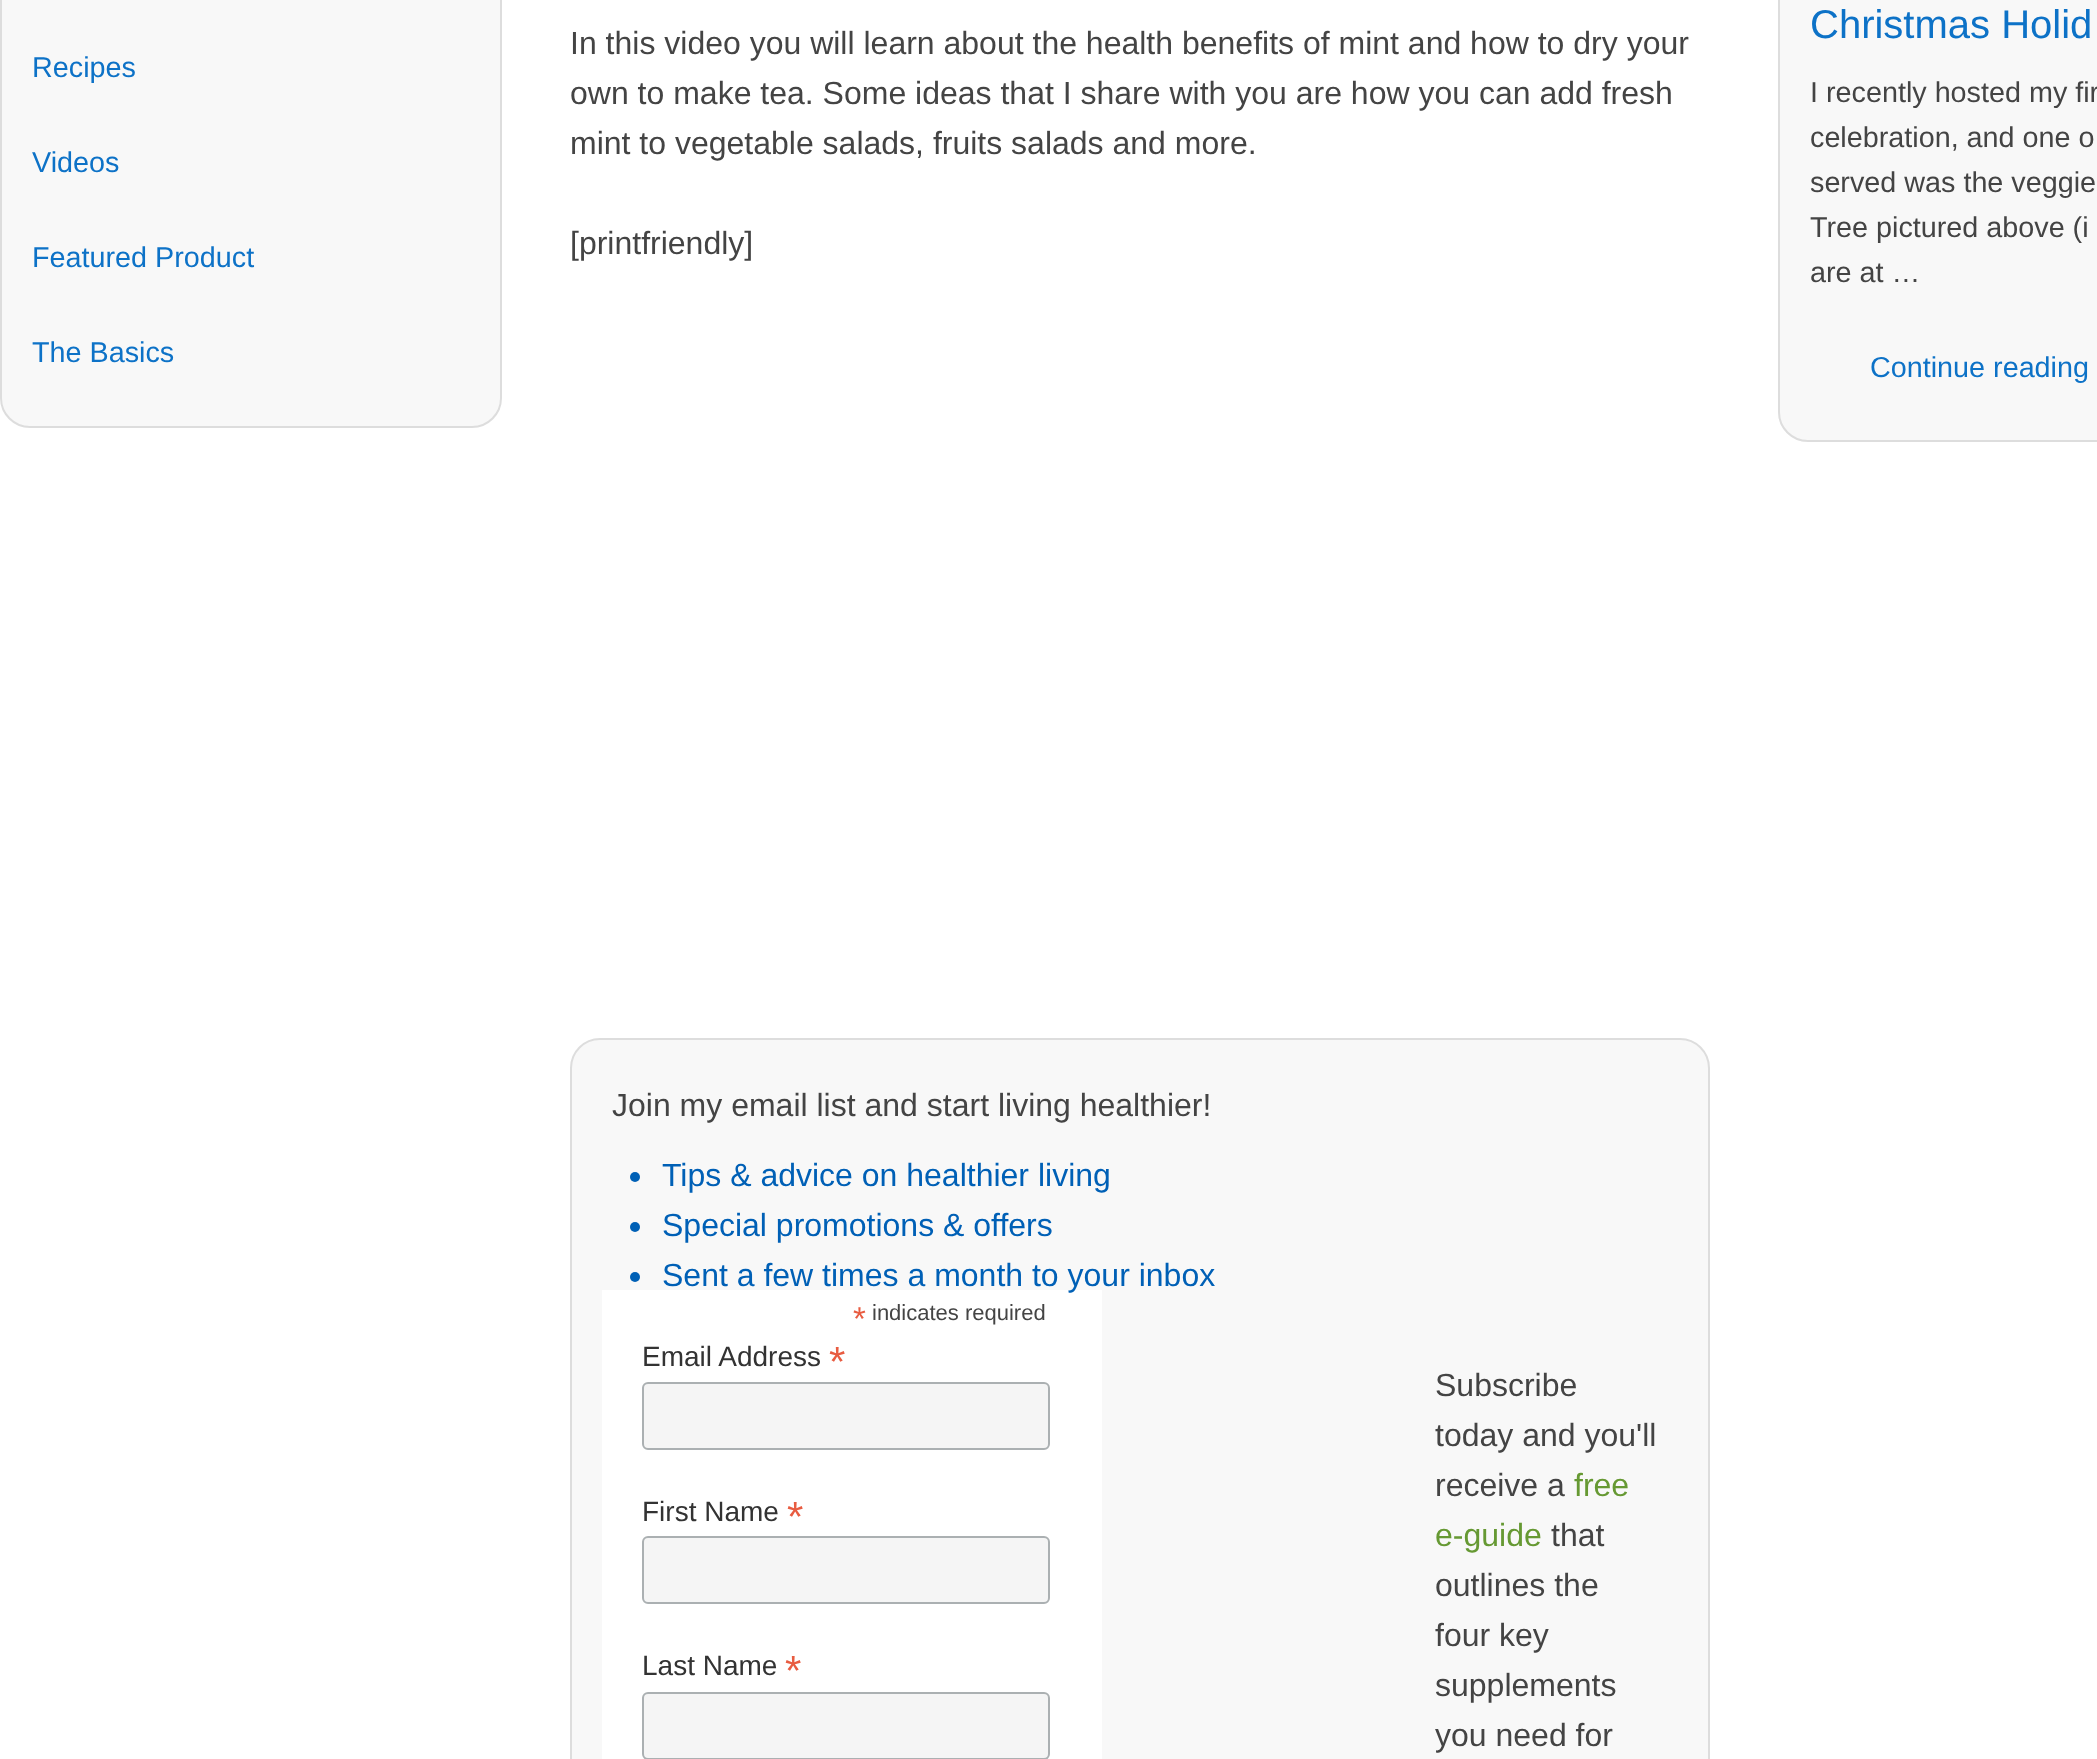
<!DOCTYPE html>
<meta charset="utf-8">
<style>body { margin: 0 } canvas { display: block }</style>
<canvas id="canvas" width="2097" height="1759"></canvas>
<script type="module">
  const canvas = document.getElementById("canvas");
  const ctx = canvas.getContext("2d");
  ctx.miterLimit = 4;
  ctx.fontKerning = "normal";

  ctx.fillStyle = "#ffffff";
  ctx.fillRect(0, 0, 2097, 1759);
  ctx.fillStyle = "#f8f8f8";
  ctx.beginPath();
  ctx.roundRect(1, -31, 500, 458, 29);
  ctx.fill();
  ctx.strokeStyle = "#dddddd";
  ctx.lineWidth = 2;
  ctx.stroke();
  ctx.font = "28.75px Liberation Sans";
  ctx.fillStyle = "#0d72c7";
  ctx.fillText("Recipes", 32, 77);
  ctx.fillText("Videos", 32, 172);
  ctx.fillText("Featured Product", 32, 267);
  ctx.fillText("The Basics", 32, 362);
  ctx.font = "32px Liberation Sans";
  ctx.fillStyle = "#444444";
  ctx.fillText("In this video you will learn about the health benefits of mint and how to dry your", 570, 54);
  ctx.fillText("own to make tea. Some ideas that I share with you are how you can add fresh", 570, 104);
  ctx.fillText("mint to vegetable salads, fruits salads and more.", 570, 154);
  ctx.fillText("[printfriendly]", 570, 254);
  ctx.fillStyle = "#f8f8f8";
  ctx.beginPath();
  ctx.roundRect(571, 1039, 1138, 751, 29);
  ctx.fill();
  ctx.stroke();
  ctx.fillStyle = "#444444";
  ctx.fillText("Join my email list and start living healthier!", 612, 1116);
  ctx.fillStyle = "#0060b6";
  ctx.beginPath();
  ctx.arc(635, 1177, 5, 0, Math.PI * 2);
  ctx.fill();
  ctx.fillText("Tips & advice on healthier living", 662, 1186);
  ctx.beginPath();
  ctx.arc(635, 1227, 5, 0, Math.PI * 2);
  ctx.fill();
  ctx.fillText("Special promotions & offers", 662, 1236);
  ctx.beginPath();
  ctx.arc(635, 1277, 5, 0, Math.PI * 2);
  ctx.fill();
  ctx.fillStyle = "#ffffff";
  ctx.fillRect(602, 1290, 500, 469);
  ctx.fillStyle = "#0060b6";
  ctx.fillText("Sent a few times a month to your inbox", 662, 1286);
  ctx.font = "33px Liberation Sans";
  ctx.fillStyle = "#e85c41";
  ctx.fillText("*", 853, 1330);
  ctx.font = "22px Liberation Sans";
  ctx.fillStyle = "#444444";
  ctx.fillText("indicates required", 872, 1320);
  ctx.font = "28px Liberation Sans";
  ctx.fillStyle = "#333333";
  ctx.fillText("Email Address", 642, 1366);
  ctx.font = "42px Liberation Sans";
  ctx.fillStyle = "#e85c41";
  ctx.fillText("*", 829, 1376);
  ctx.fillStyle = "#f5f5f5";
  ctx.beginPath();
  ctx.roundRect(643, 1383, 406, 66, 5);
  ctx.fill();
  ctx.strokeStyle = "#abb0b2";
  ctx.stroke();
  ctx.font = "28px Liberation Sans";
  ctx.fillStyle = "#333333";
  ctx.fillText("First Name", 642, 1521);
  ctx.font = "42px Liberation Sans";
  ctx.fillStyle = "#e85c41";
  ctx.fillText("*", 787, 1531);
  ctx.fillStyle = "#f5f5f5";
  ctx.beginPath();
  ctx.roundRect(643, 1537, 406, 66, 5);
  ctx.fill();
  ctx.stroke();
  ctx.font = "28px Liberation Sans";
  ctx.fillStyle = "#333333";
  ctx.fillText("Last Name", 642, 1675);
  ctx.font = "42px Liberation Sans";
  ctx.fillStyle = "#e85c41";
  ctx.fillText("*", 785, 1685);
  ctx.fillStyle = "#f5f5f5";
  ctx.beginPath();
  ctx.roundRect(643, 1693, 406, 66, 5);
  ctx.fill();
  ctx.stroke();
  ctx.font = "32px Liberation Sans";
  ctx.fillStyle = "#444444";
  ctx.fillText("Subscribe", 1435, 1396);
  ctx.fillText("today and you'll", 1435, 1446);
  ctx.fillText("receive a", 1435, 1496);
  ctx.fillStyle = "#669933";
  ctx.fillText("free", 1574, 1496);
  ctx.fillText("e-guide", 1435, 1546);
  ctx.fillStyle = "#444444";
  ctx.fillText("that", 1551, 1546);
  ctx.fillText("outlines the", 1435, 1596);
  ctx.fillText("four key", 1435, 1646);
  ctx.fillText("supplements", 1435, 1696);
  ctx.fillText("you need for", 1435, 1746);
  ctx.fillStyle = "#f8f8f8";
  ctx.beginPath();
  ctx.moveTo(1808, -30);
  ctx.lineTo(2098, -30);
  ctx.lineTo(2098, 442);
  ctx.lineTo(1808, 442);
  ctx.bezierCurveTo(1791.5, 442, 1778, 428.5, 1778, 412);
  ctx.lineTo(1778, 0);
  ctx.bezierCurveTo(1778, -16.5, 1791.5, -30, 1808, -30);
  ctx.closePath();
  ctx.fill();
  ctx.beginPath();
  ctx.roundRect(1779, -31, 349, 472, 29);
  ctx.strokeStyle = "#dddddd";
  ctx.stroke();
  ctx.font = "40px Liberation Sans";
  ctx.fillStyle = "#0d72c7";
  ctx.fillText("Christmas Holid", 1810, 38);
  ctx.font = "28.75px Liberation Sans";
  ctx.fillStyle = "#444444";
  ctx.fillText("I recently hosted my fir", 1810, 102);
  ctx.fillText("celebration, and one o", 1810, 147);
  ctx.fillText("served was the veggie", 1810, 192);
  ctx.fillText("Tree pictured above (i", 1810, 237);
  ctx.fillText("are at …", 1810, 282);
  ctx.fillStyle = "#0d72c7";
  ctx.fillText("Continue reading", 1870, 377);
</script>
